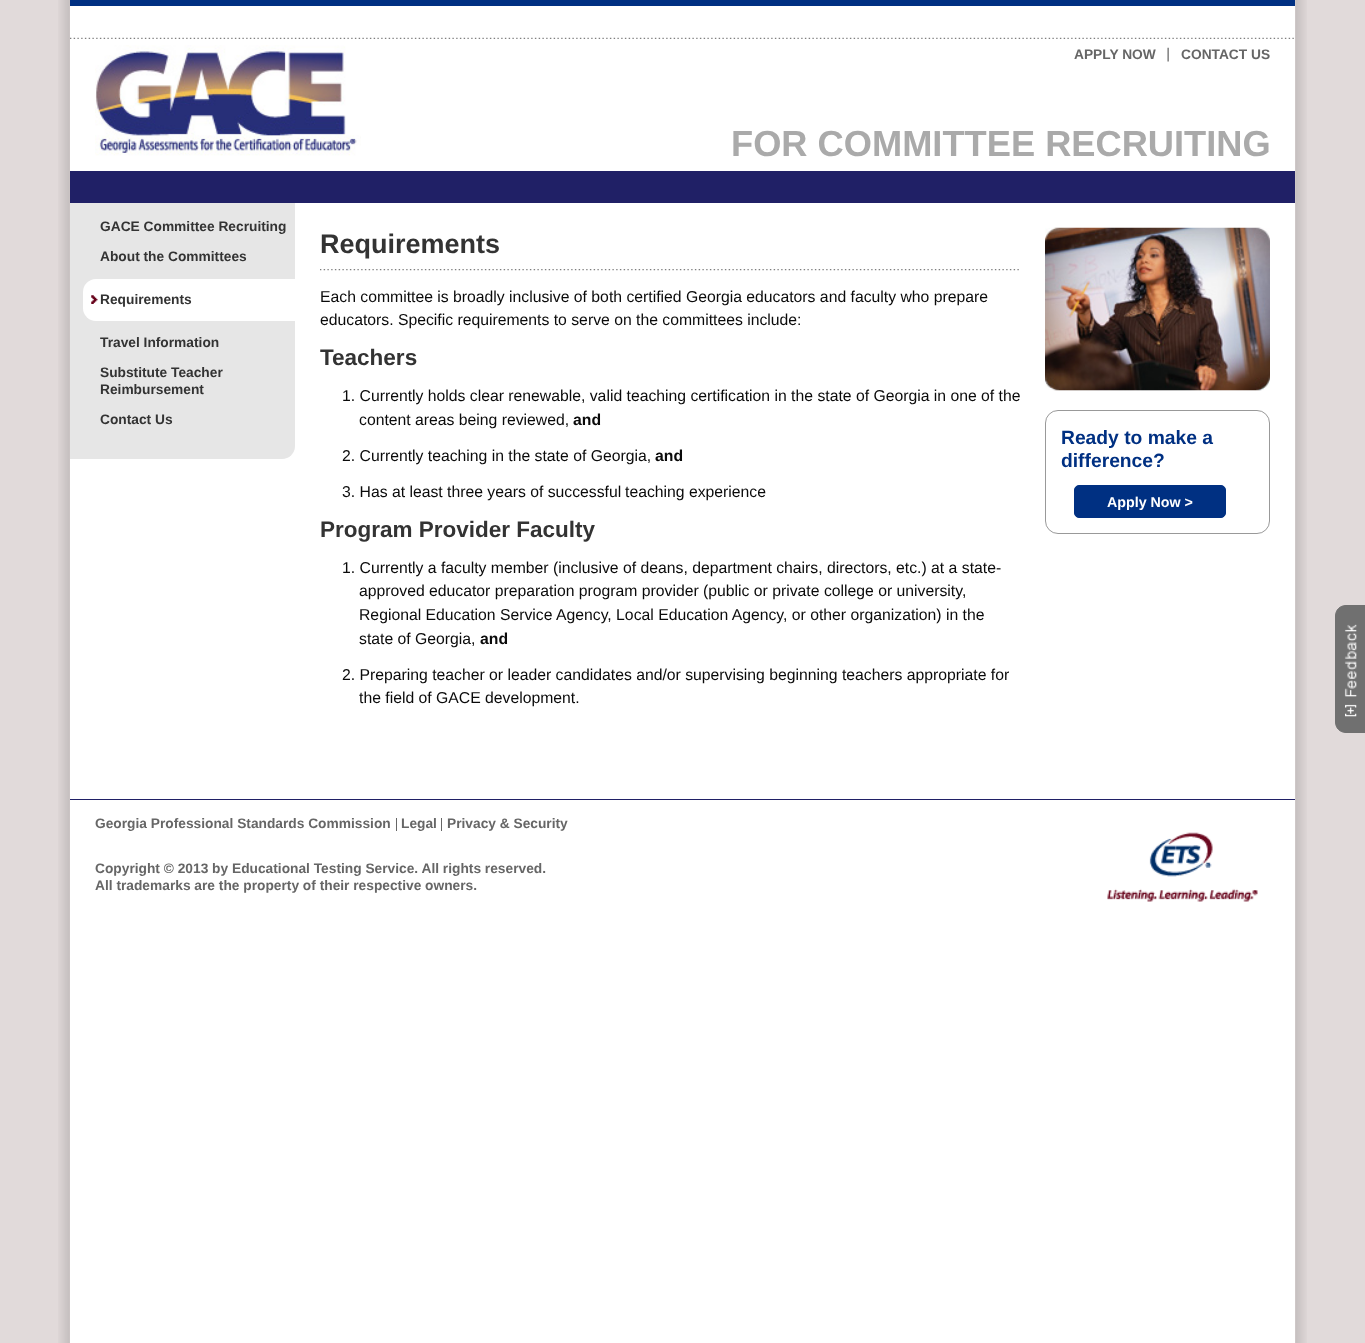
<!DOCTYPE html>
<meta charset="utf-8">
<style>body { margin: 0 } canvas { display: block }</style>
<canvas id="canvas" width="1365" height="1343"></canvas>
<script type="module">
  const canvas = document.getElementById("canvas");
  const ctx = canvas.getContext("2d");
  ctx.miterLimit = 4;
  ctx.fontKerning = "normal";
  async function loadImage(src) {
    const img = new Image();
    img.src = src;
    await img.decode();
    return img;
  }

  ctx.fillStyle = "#e1dada";
  ctx.fillRect(0, 0, 1365, 1343);
  ctx.drawImage(await loadImage("img1.png"), 58, 0, 1249, 1343);
  ctx.fillStyle = "#ffffff";
  ctx.fillRect(70, 6, 1225, 1337);
  ctx.fillStyle = "#003082";
  ctx.fillRect(70, 0, 1225, 6);
  ctx.drawImage(await loadImage("img2.png"), 70, 37, 1224, 2);
  ctx.drawImage(await loadImage("img3.png"), 95, 45, 266, 111);
  ctx.drawImage(await loadImage("img4.png"), 1167, 47, 2, 15);
  ctx.font = "bold 13.75px Liberation Sans";
  ctx.fillStyle = "#666666";
  ctx.fillText("APPLY NOW", 1074, 59);
  ctx.fillText("CONTACT US", 1181, 59);
  ctx.font = "bold 36.25px Liberation Sans";
  ctx.fillStyle = "#aaaaaa";
  ctx.fillText("FOR COMMITTEE RECRUITING", 731, 156);
  ctx.fillStyle = "#202066";
  ctx.fillRect(70, 171, 1225, 32);
  ctx.fillStyle = "#e6e6e6";
  ctx.beginPath();
  ctx.roundRect(70, 203, 225, 256, [0, 0, 13, 0]);
  ctx.fill();
  ctx.font = "bold 13.75px Liberation Sans";
  ctx.fillStyle = "#333333";
  ctx.fillText("GACE Committee Recruiting", 100, 231);
  ctx.fillText("About the Committees", 100, 261);
  ctx.fillStyle = "#ffffff";
  ctx.beginPath();
  ctx.roundRect(83, 279, 212, 42, [13, 0, 0, 13]);
  ctx.fill();
  ctx.drawImage(await loadImage("img5.png"), 91, 295, 7, 9);
  ctx.fillStyle = "#333333";
  ctx.fillText("Requirements", 100, 304);
  ctx.fillText("Travel Information", 100, 347);
  ctx.fillText("Substitute Teacher", 100, 377);
  ctx.fillText("Reimbursement", 100, 394);
  ctx.fillText("Contact Us", 100, 424);
  ctx.font = "bold 27px Liberation Sans";
  ctx.fillText("Requirements", 320, 253);
  ctx.drawImage(await loadImage("img6.png"), 320, 269, 699, 2);
  ctx.font = "15.75px Liberation Sans";
  ctx.fillStyle = "#0a0a0a";
  ctx.fillText("Each committee is broadly inclusive of both certified Georgia educators and faculty who prepare", 320, 302);
  ctx.fillText("educators. Specific requirements to serve on the committees include:", 320, 325);
  ctx.font = "bold 22.5px Liberation Sans";
  ctx.fillStyle = "#333333";
  ctx.fillText("Teachers", 320, 365);
  ctx.font = "15.75px Liberation Sans";
  ctx.fillStyle = "#0a0a0a";
  ctx.fillText("1. Currently holds clear renewable, valid teaching certification in the state of Georgia in one of the", 342, 401);
  ctx.fillText("content areas being reviewed,", 359, 425);
  ctx.font = "bold 15.75px Liberation Sans";
  ctx.fillText("and", 573, 425);
  ctx.font = "15.75px Liberation Sans";
  ctx.fillText("2. Currently teaching in the state of Georgia,", 342, 461);
  ctx.font = "bold 15.75px Liberation Sans";
  ctx.fillText("and", 655, 461);
  ctx.font = "15.75px Liberation Sans";
  ctx.fillText("3. Has at least three years of successful", 342, 497);
  ctx.fillText("teaching experience", 625, 497);
  ctx.font = "bold 22.5px Liberation Sans";
  ctx.fillStyle = "#333333";
  ctx.fillText("Program Provider Faculty", 320, 537);
  ctx.font = "15.75px Liberation Sans";
  ctx.fillStyle = "#0a0a0a";
  ctx.fillText("1. Currently a faculty member (inclusive of deans, department chairs, directors, etc.) at a state-", 342, 573);
  ctx.fillText("approved educator preparation program provider (public or private college or university,", 359, 596);
  ctx.fillText("Regional Education Service Agency, Local Education Agency, or other organization) in the", 359, 620);
  ctx.fillText("state of Georgia,", 359, 644);
  ctx.font = "bold 15.75px Liberation Sans";
  ctx.fillText("and", 480, 644);
  ctx.font = "15.75px Liberation Sans";
  ctx.fillText("2. Preparing teacher or leader candidates and/or supervising beginning teachers appropriate for", 342, 680);
  ctx.fillText("the field of GACE development.", 359, 703);
  ctx.drawImage(await loadImage("img7.png"), 1045, 227, 225, 164);
  ctx.beginPath();
  ctx.roundRect(1045.5, 410.5, 224, 123, 12.5);
  ctx.strokeStyle = "#999999";
  ctx.stroke();
  ctx.font = "bold 19.25px Liberation Sans";
  ctx.fillStyle = "#003082";
  ctx.fillText("Ready to make a", 1061, 444);
  ctx.fillText("difference?", 1061, 467);
  ctx.beginPath();
  ctx.roundRect(1074.5, 485.5, 151, 32, 4.5);
  ctx.fill();
  ctx.strokeStyle = "#003082";
  ctx.stroke();
  ctx.font = "bold 14.25px Liberation Sans";
  ctx.fillStyle = "#ffffff";
  ctx.fillText("Apply Now >", 1107, 507);
  ctx.fillStyle = "#202066";
  ctx.fillRect(70, 799, 1225, 1);
  ctx.fillStyle = "#666666";
  ctx.fillRect(396, 818, 1, 13);
  ctx.font = "bold 13.75px Liberation Sans";
  ctx.fillText("Georgia Professional Standards Commission", 95, 828);
  ctx.fillRect(441, 818, 1, 13);
  ctx.fillText("Legal", 401, 828);
  ctx.fillText("Privacy & Security", 447, 828);
  ctx.fillText("Copyright © 2013 by Educational Testing Service. All rights reserved.", 95, 873);
  ctx.fillText("All trademarks are the property of their respective owners.", 95, 890);
  ctx.drawImage(await loadImage("img8.png"), 1107, 832, 151, 70);
  ctx.fillStyle = "#707070";
  ctx.beginPath();
  ctx.moveTo(1346, 605.5);
  ctx.lineTo(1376.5, 605.5);
  ctx.lineTo(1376.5, 732.5);
  ctx.lineTo(1346, 732.5);
  ctx.bezierCurveTo(1340, 732.5, 1335.5, 728, 1335.5, 722);
  ctx.lineTo(1335.5, 616);
  ctx.bezierCurveTo(1335.5, 610, 1340, 605.5, 1346, 605.5);
  ctx.closePath();
  ctx.fill();
  ctx.strokeStyle = "#707070";
  ctx.stroke();
  ctx.drawImage(await loadImage("img9.png"), 1344, 624, 13, 73);
  ctx.drawImage(await loadImage("img10.png"), 1345, 704, 12, 13);
</script>
